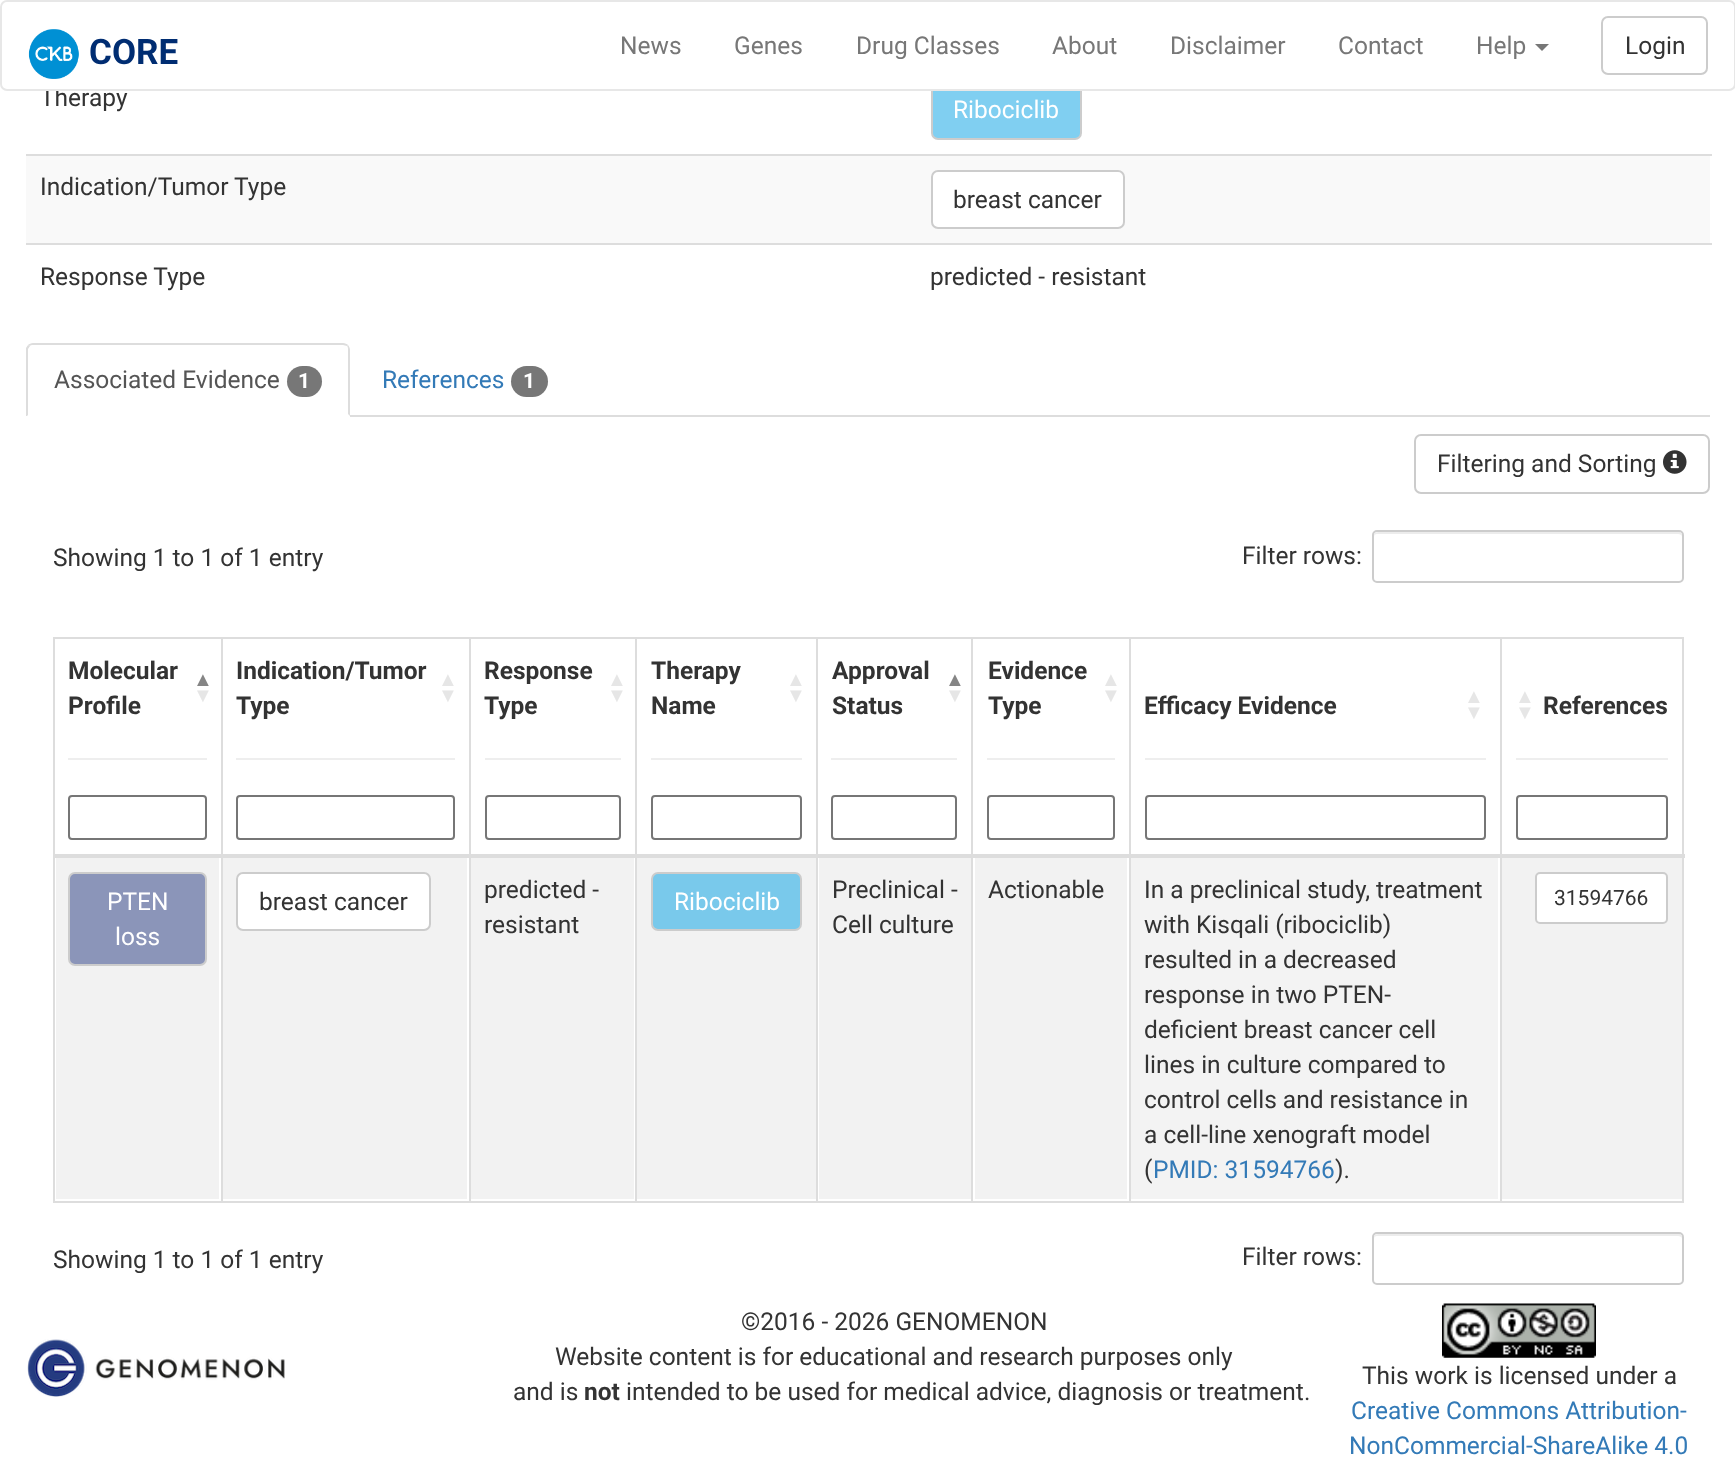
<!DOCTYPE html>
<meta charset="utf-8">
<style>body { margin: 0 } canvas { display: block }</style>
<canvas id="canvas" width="1735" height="1469"></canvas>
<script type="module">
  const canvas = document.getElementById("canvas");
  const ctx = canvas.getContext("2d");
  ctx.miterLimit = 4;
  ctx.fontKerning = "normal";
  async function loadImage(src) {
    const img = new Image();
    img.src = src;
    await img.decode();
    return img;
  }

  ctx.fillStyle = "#ffffff";
  ctx.fillRect(0, 0, 1735, 1469);
  ctx.font = "24.5px Roboto";
  ctx.fillStyle = "#333333";
  ctx.fillText("Therapy", 40, 106);
  ctx.fillStyle = "#80cff1";
  ctx.beginPath();
  ctx.roundRect(932, 82, 149, 57, 6);
  ctx.fill();
  ctx.strokeStyle = "#cccccc";
  ctx.lineWidth = 2;
  ctx.stroke();
  ctx.fillStyle = "#ffffff";
  ctx.beginPath();
  ctx.roundRect(1, 1, 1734, 89, 6);
  ctx.fill();
  ctx.strokeStyle = "#e7e7e7";
  ctx.stroke();
  ctx.drawImage(await loadImage("img1.png"), 28, 29, 51, 50);
  ctx.font = "bold 35px Roboto";
  ctx.fillStyle = "#002d72";
  ctx.fillText("CORE", 89, 64);
  ctx.font = "24.5px Roboto";
  ctx.fillStyle = "#777777";
  ctx.fillText("News", 620, 54);
  ctx.fillText("Genes", 734, 54);
  ctx.fillText("Drug Classes", 856, 54);
  ctx.fillText("About", 1052, 54);
  ctx.fillText("Disclaimer", 1170, 54);
  ctx.fillText("Contact", 1338, 54);
  ctx.fillText("Help", 1476, 54);
  ctx.beginPath();
  ctx.moveTo(1535, 44);
  ctx.lineTo(1549, 44);
  ctx.lineTo(1542, 51);
  ctx.closePath();
  ctx.fill();
  ctx.beginPath();
  ctx.roundRect(1602, 17, 105, 57, 6);
  ctx.strokeStyle = "#cccccc";
  ctx.stroke();
  ctx.fillStyle = "#333333";
  ctx.fillText("Login", 1625, 54);
  ctx.fillStyle = "#ffffff";
  ctx.fillText("Ribociclib", 953, 118);
  ctx.fillStyle = "#f9f9f9";
  ctx.fillRect(26, 156, 1684, 87);
  ctx.fillStyle = "#333333";
  ctx.fillText("Indication/Tumor Type", 40, 195);
  ctx.fillStyle = "#dddddd";
  ctx.fillRect(26, 154, 1686, 2);
  ctx.fillStyle = "#ffffff";
  ctx.beginPath();
  ctx.roundRect(932, 171, 192, 57, 6);
  ctx.fill();
  ctx.stroke();
  ctx.fillStyle = "#333333";
  ctx.fillText("breast cancer", 953, 208);
  ctx.fillText("Response Type", 40, 285);
  ctx.fillStyle = "#dddddd";
  ctx.fillRect(26, 243, 1686, 2);
  ctx.fillStyle = "#333333";
  ctx.fillText("predicted - resistant", 930, 285);
  ctx.fillStyle = "#dddddd";
  ctx.fillRect(350, 415, 1360, 2);
  ctx.beginPath();
  ctx.moveTo(33, 343);
  ctx.bezierCurveTo(31, 343, 29, 344, 28, 345);
  ctx.lineTo(30, 346);
  ctx.bezierCurveTo(30, 345, 32, 345, 33, 345);
  ctx.lineTo(343, 345);
  ctx.bezierCurveTo(344, 345, 346, 346, 347, 346);
  ctx.lineTo(348, 345);
  ctx.bezierCurveTo(347, 344, 345, 343, 343, 343);
  ctx.closePath();
  ctx.fill();
  ctx.beginPath();
  ctx.moveTo(350, 416);
  ctx.lineTo(350, 350);
  ctx.bezierCurveTo(350, 348, 349, 346, 348, 345);
  ctx.lineTo(347, 346);
  ctx.bezierCurveTo(348, 347, 348, 348, 348, 350);
  ctx.lineTo(348, 414);
  ctx.closePath();
  ctx.fill();
  ctx.beginPath();
  ctx.moveTo(26, 348);
  ctx.lineTo(28, 345);
  ctx.lineTo(30, 346);
  ctx.lineTo(28, 349);
  ctx.lineTo(28, 415);
  ctx.lineTo(27, 416);
  ctx.lineTo(26, 416);
  ctx.closePath();
  ctx.fill();
  ctx.fillStyle = "#555555";
  ctx.fillText("Associated Evidence", 54, 388);
  ctx.fillStyle = "#777777";
  ctx.beginPath();
  ctx.roundRect(287, 366, 35, 31, 15.5);
  ctx.fill();
  ctx.font = "bold 21px Roboto";
  ctx.fillStyle = "#ffffff";
  ctx.fillText("1", 298, 388);
  ctx.font = "24.5px Roboto";
  ctx.fillStyle = "#337ab7";
  ctx.fillText("References", 382, 388);
  ctx.fillStyle = "#777777";
  ctx.beginPath();
  ctx.roundRect(511, 366, 37, 31, 15.5);
  ctx.fill();
  ctx.font = "bold 21px Roboto";
  ctx.fillStyle = "#ffffff";
  ctx.fillText("1", 523, 388);
  ctx.beginPath();
  ctx.roundRect(1415, 435, 294, 58, 6);
  ctx.stroke();
  ctx.font = "24.5px Roboto";
  ctx.fillStyle = "#333333";
  ctx.fillText("Filtering and Sorting", 1437, 472);
  ctx.drawImage(await loadImage("img2.png"), 1663, 450, 24, 24);
  ctx.fillText("Showing 1 to 1 of 1 entry", 53, 566);
  ctx.fillText("Filter rows:", 1242, 564);
  ctx.fillStyle = "#ececec";
  ctx.beginPath();
  ctx.moveTo(1377, 534);
  ctx.lineTo(1678, 534);
  ctx.bezierCurveTo(1680, 534, 1682, 535, 1682, 537);
  ctx.bezierCurveTo(1682, 534, 1681, 532, 1678, 532);
  ctx.lineTo(1378, 532);
  ctx.lineTo(1375, 533);
  ctx.bezierCurveTo(1374, 534, 1374, 536, 1374, 537);
  ctx.bezierCurveTo(1374, 535, 1375, 534, 1377, 534);
  ctx.closePath();
  ctx.fill();
  ctx.beginPath();
  ctx.roundRect(1373, 531, 310, 51, 4);
  ctx.stroke();
  ctx.fillStyle = "#dddddd";
  ctx.fillRect(53, 637, 1631, 2);
  ctx.fillRect(1682, 637, 2, 565);
  ctx.fillRect(53, 1201, 1631, 2);
  ctx.fillRect(53, 637, 2, 565);
  ctx.font = "bold 24.5px Roboto";
  ctx.fillStyle = "#333333";
  ctx.fillText("Molecular", 68, 679);
  ctx.fillText("Profile", 68, 714);
  ctx.font = "bold 20px Liberation Sans";
  ctx.fillStyle = "#858585";
  ctx.fillText("▲", 193, 686);
  ctx.fillStyle = "#e6e6e6";
  ctx.fillText("▼", 193, 702);
  ctx.fillStyle = "#eeeeee";
  ctx.fillRect(68, 758, 139, 2);
  ctx.beginPath();
  ctx.roundRect(69, 796, 137, 43, 3);
  ctx.strokeStyle = "#767676";
  ctx.stroke();
  ctx.font = "bold 24.5px Roboto";
  ctx.fillStyle = "#333333";
  ctx.fillText("Indication/Tumor", 236, 679);
  ctx.fillText("Type", 236, 714);
  ctx.font = "bold 20px Liberation Sans";
  ctx.fillStyle = "#e6e6e6";
  ctx.fillText("▲", 438, 686);
  ctx.fillText("▼", 438, 702);
  ctx.fillStyle = "#eeeeee";
  ctx.fillRect(236, 758, 219, 2);
  ctx.beginPath();
  ctx.roundRect(237, 796, 217, 43, 3);
  ctx.stroke();
  ctx.font = "bold 24.5px Roboto";
  ctx.fillStyle = "#333333";
  ctx.fillText("Response", 484, 679);
  ctx.fillText("Type", 484, 714);
  ctx.font = "bold 20px Liberation Sans";
  ctx.fillStyle = "#e6e6e6";
  ctx.fillText("▲", 607, 686);
  ctx.fillText("▼", 607, 702);
  ctx.fillStyle = "#eeeeee";
  ctx.fillRect(485, 758, 136, 2);
  ctx.beginPath();
  ctx.roundRect(486, 796, 134, 43, 3);
  ctx.stroke();
  ctx.font = "bold 24.5px Roboto";
  ctx.fillStyle = "#333333";
  ctx.fillText("Therapy", 651, 679);
  ctx.fillText("Name", 651, 714);
  ctx.font = "bold 20px Liberation Sans";
  ctx.fillStyle = "#e6e6e6";
  ctx.fillText("▲", 786, 686);
  ctx.fillText("▼", 786, 702);
  ctx.fillStyle = "#eeeeee";
  ctx.fillRect(651, 758, 151, 2);
  ctx.beginPath();
  ctx.roundRect(652, 796, 149, 43, 3);
  ctx.stroke();
  ctx.font = "bold 24.5px Roboto";
  ctx.fillStyle = "#333333";
  ctx.fillText("Approval", 832, 679);
  ctx.fillText("Status", 832, 714);
  ctx.font = "bold 20px Liberation Sans";
  ctx.fillStyle = "#858585";
  ctx.fillText("▲", 945, 686);
  ctx.fillStyle = "#e6e6e6";
  ctx.fillText("▼", 945, 702);
  ctx.fillStyle = "#eeeeee";
  ctx.fillRect(831, 758, 126, 2);
  ctx.beginPath();
  ctx.roundRect(832, 796, 124, 43, 3);
  ctx.stroke();
  ctx.font = "bold 24.5px Roboto";
  ctx.fillStyle = "#333333";
  ctx.fillText("Evidence", 988, 679);
  ctx.fillText("Type", 988, 714);
  ctx.font = "bold 20px Liberation Sans";
  ctx.fillStyle = "#e6e6e6";
  ctx.fillText("▲", 1101, 686);
  ctx.fillText("▼", 1101, 702);
  ctx.fillStyle = "#eeeeee";
  ctx.fillRect(987, 758, 128, 2);
  ctx.beginPath();
  ctx.roundRect(988, 796, 126, 43, 3);
  ctx.stroke();
  ctx.font = "bold 24.5px Roboto";
  ctx.fillStyle = "#333333";
  ctx.fillText("Efficacy Evidence", 1144, 714);
  ctx.font = "bold 20px Liberation Sans";
  ctx.fillStyle = "#e6e6e6";
  ctx.fillText("▲", 1464, 703);
  ctx.fillText("▼", 1464, 719);
  ctx.fillStyle = "#eeeeee";
  ctx.fillRect(1145, 758, 341, 2);
  ctx.beginPath();
  ctx.roundRect(1146, 796, 339, 43, 3);
  ctx.stroke();
  ctx.fillStyle = "#dddddd";
  ctx.fillRect(221, 637, 2, 565);
  ctx.fillRect(469, 637, 2, 565);
  ctx.fillRect(635, 637, 2, 565);
  ctx.fillRect(816, 637, 2, 565);
  ctx.fillRect(971, 637, 2, 565);
  ctx.fillRect(1129, 637, 2, 565);
  ctx.fillRect(1500, 637, 2, 565);
  ctx.fillRect(53, 854, 1632, 4);
  ctx.fillStyle = "#e6e6e6";
  ctx.fillText("▲", 1515, 703);
  ctx.fillText("▼", 1515, 719);
  ctx.font = "bold 24.5px Roboto";
  ctx.fillStyle = "#333333";
  ctx.fillText("References", 1543, 714);
  ctx.fillStyle = "#eeeeee";
  ctx.fillRect(1516, 758, 152, 2);
  ctx.beginPath();
  ctx.roundRect(1517, 796, 150, 43, 3);
  ctx.stroke();
  ctx.fillStyle = "#f2f2f2";
  ctx.fillRect(56, 858, 163, 341);
  ctx.fillStyle = "#8b95b9";
  ctx.beginPath();
  ctx.roundRect(69, 873, 137, 92, 6);
  ctx.fill();
  ctx.strokeStyle = "#cccccc";
  ctx.stroke();
  ctx.font = "24.5px Roboto";
  ctx.fillStyle = "#ffffff";
  ctx.fillText("PTEN", 107, 910);
  ctx.fillText("loss", 115, 945);
  ctx.fillStyle = "#f2f2f2";
  ctx.fillRect(223, 858, 244, 341);
  ctx.fillStyle = "#ffffff";
  ctx.beginPath();
  ctx.roundRect(237, 873, 193, 57, 6);
  ctx.fill();
  ctx.stroke();
  ctx.fillStyle = "#333333";
  ctx.fillText("breast cancer", 259, 910);
  ctx.fillStyle = "#f2f2f2";
  ctx.fillRect(471, 858, 163, 341);
  ctx.fillStyle = "#333333";
  ctx.fillText("predicted -", 484, 898);
  ctx.fillText("resistant", 484, 933);
  ctx.fillStyle = "#f2f2f2";
  ctx.fillRect(637, 858, 179, 341);
  ctx.fillStyle = "#79c9eb";
  ctx.beginPath();
  ctx.roundRect(652, 873, 149, 57, 6);
  ctx.fill();
  ctx.stroke();
  ctx.fillStyle = "#ffffff";
  ctx.fillText("Ribociclib", 674, 910);
  ctx.fillStyle = "#f2f2f2";
  ctx.fillRect(819, 858, 152, 341);
  ctx.fillStyle = "#333333";
  ctx.fillText("Preclinical -", 832, 898);
  ctx.fillText("Cell culture", 832, 933);
  ctx.fillStyle = "#f2f2f2";
  ctx.fillRect(975, 858, 152, 341);
  ctx.fillStyle = "#333333";
  ctx.fillText("Actionable", 988, 898);
  ctx.fillStyle = "#f3f3f3";
  ctx.fillRect(1131, 858, 367, 341);
  ctx.fillStyle = "#333333";
  ctx.fillText("In a preclinical study, treatment", 1144, 898);
  ctx.fillText("with Kisqali (ribociclib)", 1144, 933);
  ctx.fillText("resulted in a decreased", 1144, 968);
  ctx.fillText("response in two PTEN-", 1144, 1003);
  ctx.fillText("deficient breast cancer cell", 1144, 1038);
  ctx.fillText("lines in culture compared to", 1144, 1073);
  ctx.fillText("control cells and resistance in", 1144, 1108);
  ctx.fillText("a cell-line xenograft model", 1144, 1143);
  ctx.fillText("(", 1144, 1178);
  ctx.fillStyle = "#337ab7";
  ctx.fillText("PMID: 31594766", 1153, 1178);
  ctx.fillStyle = "#333333";
  ctx.fillText(").", 1335, 1178);
  ctx.fillStyle = "#f2f2f2";
  ctx.fillRect(1502, 858, 180, 341);
  ctx.fillStyle = "#ffffff";
  ctx.beginPath();
  ctx.roundRect(1536, 873, 131, 50, 4);
  ctx.fill();
  ctx.stroke();
  ctx.font = "21px Roboto";
  ctx.fillStyle = "#333333";
  ctx.fillText("31594766", 1554, 905);
  ctx.font = "24.5px Roboto";
  ctx.fillText("Showing 1 to 1 of 1 entry", 53, 1268);
  ctx.fillText("Filter rows:", 1242, 1265);
  ctx.fillStyle = "#ececec";
  ctx.beginPath();
  ctx.moveTo(1377, 1236);
  ctx.lineTo(1678, 1236);
  ctx.bezierCurveTo(1680, 1236, 1682, 1237, 1682, 1239);
  ctx.bezierCurveTo(1682, 1236, 1681, 1234, 1678, 1234);
  ctx.lineTo(1378, 1234);
  ctx.lineTo(1375, 1235);
  ctx.bezierCurveTo(1374, 1236, 1374, 1238, 1374, 1239);
  ctx.bezierCurveTo(1374, 1237, 1375, 1236, 1377, 1236);
  ctx.closePath();
  ctx.fill();
  ctx.beginPath();
  ctx.roundRect(1373, 1233, 310, 51, 4);
  ctx.stroke();
  ctx.drawImage(await loadImage("img3.png"), 27, 1339, 258, 58);
  ctx.fillStyle = "#333333";
  ctx.fillText("©2016 - 2026 GENOMENON", 741, 1330);
  ctx.fillText("Website content is for educational and research purposes only", 555, 1365);
  ctx.fillText("and is", 513, 1400);
  ctx.font = "bold 24.5px Roboto";
  ctx.fillText("not", 584, 1400);
  ctx.font = "24.5px Roboto";
  ctx.fillText("intended to be used for medical advice, diagnosis or treatment.", 626, 1400);
  ctx.drawImage(await loadImage("img4.png"), 1442, 1303, 154, 55);
  ctx.fillText("This work is licensed under a", 1362, 1384);
  ctx.fillStyle = "#337ab7";
  ctx.fillText("Creative Commons Attribution-", 1351, 1419);
  ctx.fillText("NonCommercial-ShareAlike 4.0", 1349, 1454);
</script>
